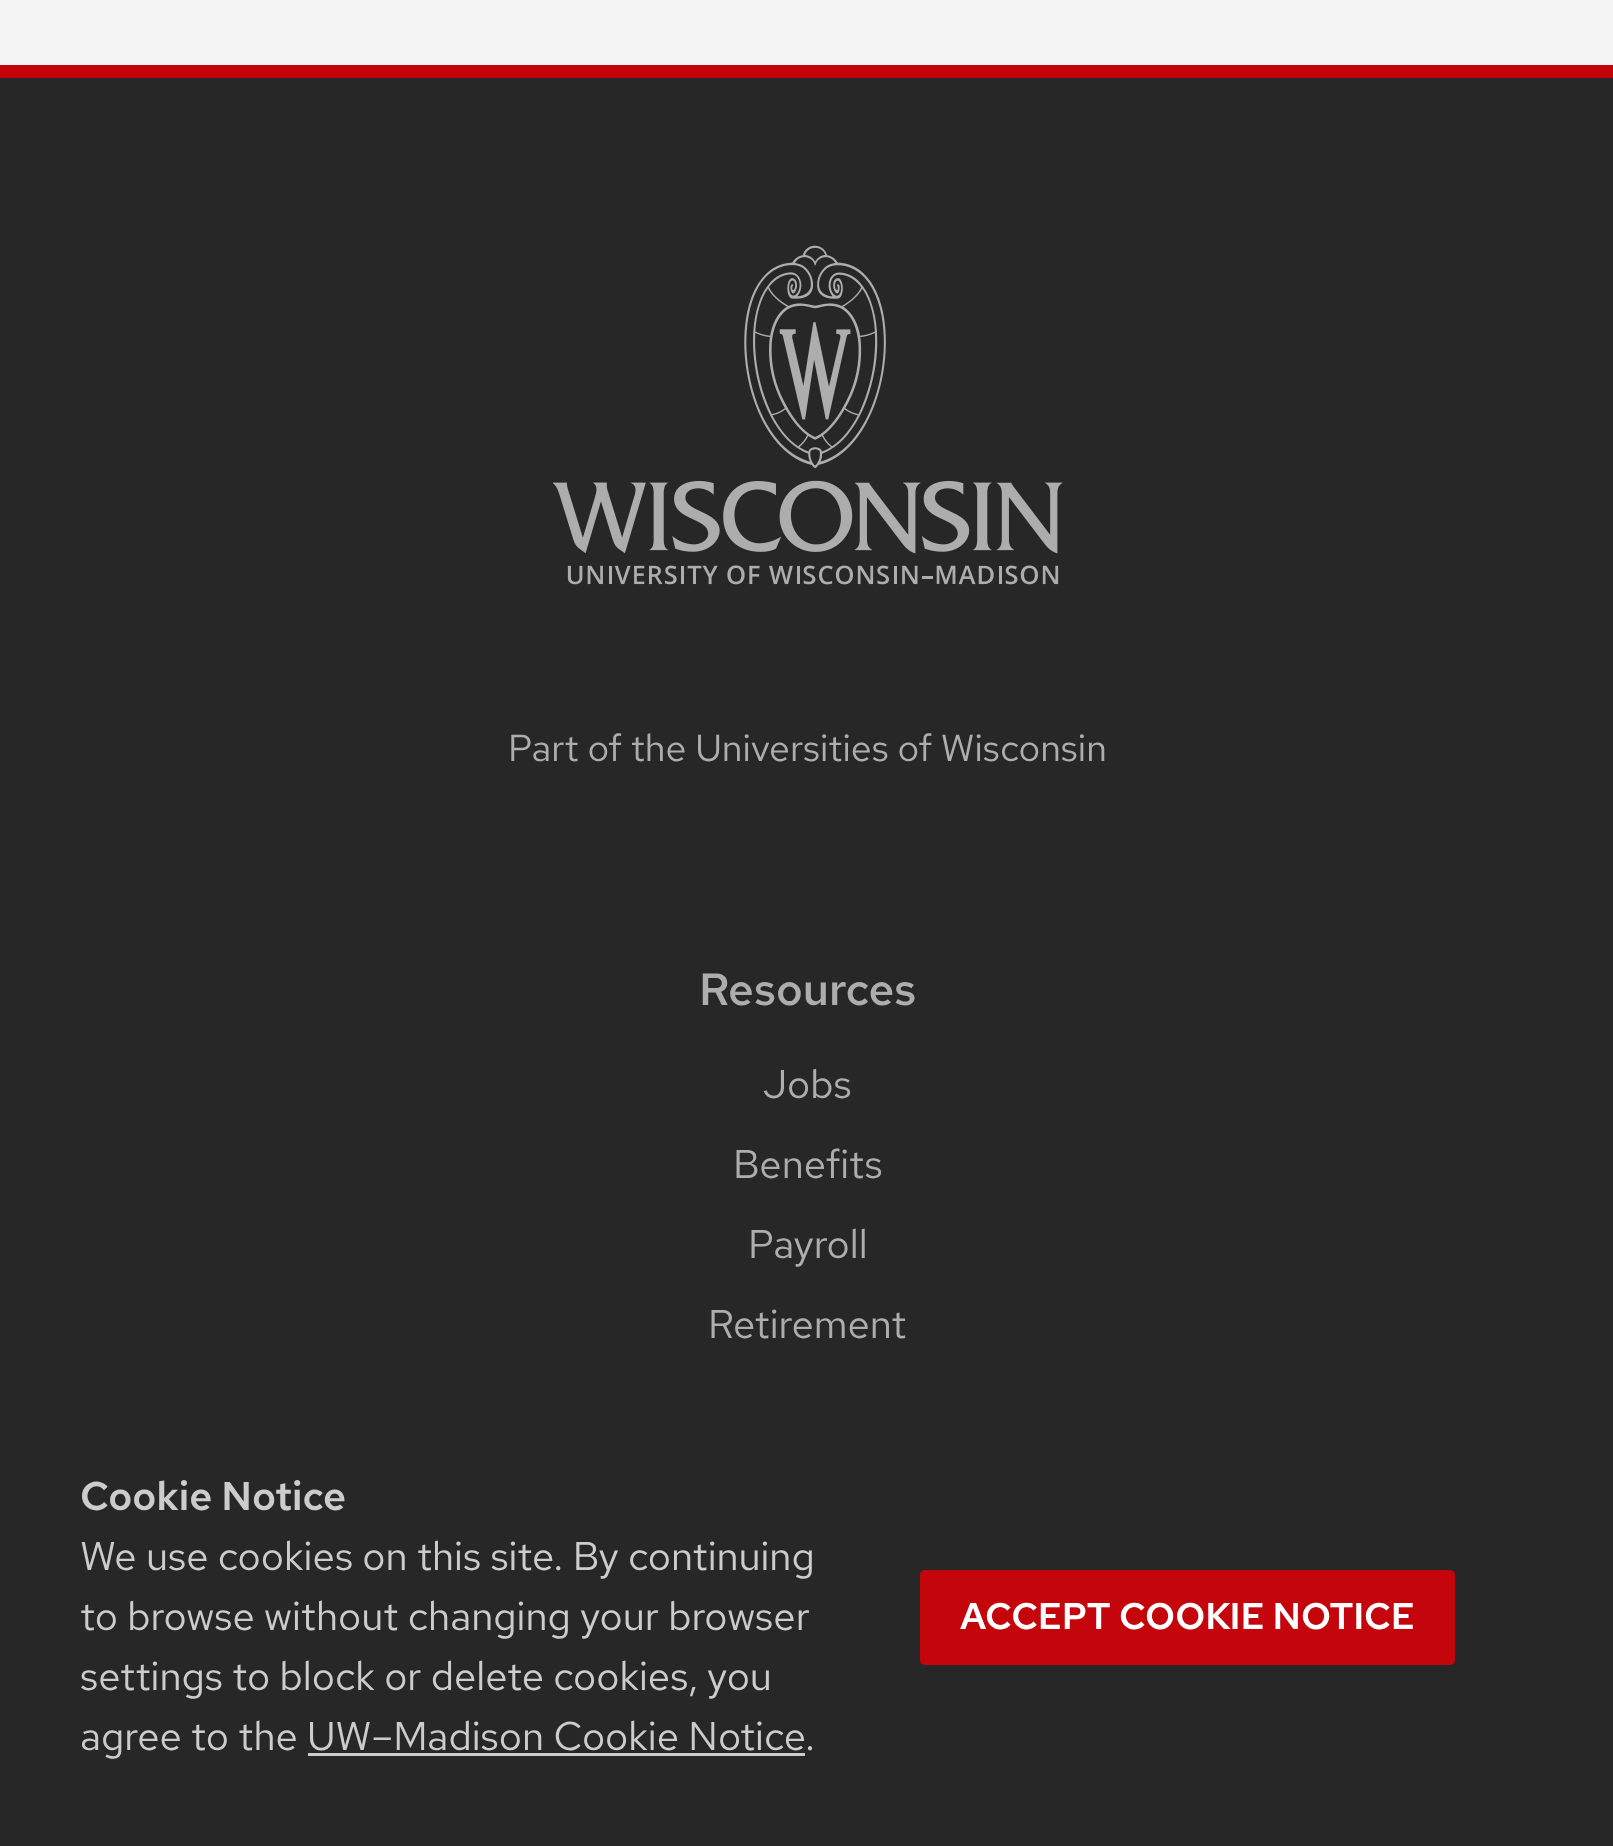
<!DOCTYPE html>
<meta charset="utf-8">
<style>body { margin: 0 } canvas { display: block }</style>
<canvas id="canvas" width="1613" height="1846"></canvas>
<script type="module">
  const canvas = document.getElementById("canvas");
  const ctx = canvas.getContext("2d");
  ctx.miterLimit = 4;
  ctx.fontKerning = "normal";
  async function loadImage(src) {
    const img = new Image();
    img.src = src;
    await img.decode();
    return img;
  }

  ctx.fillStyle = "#f3f3f3";
  ctx.fillRect(0, 0, 1613, 1846);
  ctx.fillStyle = "#282728";
  ctx.fillRect(0, 78, 1613, 1768);
  ctx.fillStyle = "#c3020a";
  ctx.fillRect(0, 65, 1613, 13);
  ctx.drawImage(await loadImage("img1.png"), 553, 245, 510, 340);
  ctx.font = "37.5px Red Hat Text";
  ctx.fillStyle = "#adadad";
  ctx.fillText("Part of the Universities of Wisconsin", 508, 761);
  ctx.font = "600 45px Red Hat Text";
  ctx.fillText("Resources", 699, 1005);
  ctx.font = "40px Red Hat Text";
  ctx.fillText("Jobs", 763, 1098);
  ctx.fillText("Benefits", 733, 1178);
  ctx.fillText("Payroll", 748, 1258);
  ctx.fillText("Retirement", 708, 1338);
  ctx.font = "600 40px 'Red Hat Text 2'";
  ctx.fillStyle = "#cccccc";
  ctx.fillText("Cookie Notice", 80, 1510);
  ctx.font = "40px Red Hat Text";
  ctx.fillText("We use cookies on this site. By continuing", 80, 1570);
  ctx.fillText("to browse without changing your browser", 80, 1630);
  ctx.fillText("settings to block or delete cookies, you", 80, 1690);
  ctx.fillText("agree to the", 80, 1750);
  ctx.fillText("UW–Madison Cookie Notice", 307, 1750);
  ctx.fillRect(308, 1753, 497, 3);
  ctx.fillText(".", 805, 1750);
  ctx.fillStyle = "#c5050c";
  ctx.beginPath();
  ctx.roundRect(920, 1570, 535, 95, 5);
  ctx.fill();
  ctx.font = "600 37px 'Red Hat Text 2'";
  ctx.fillStyle = "#ffffff";
  ctx.fillText("ACCEPT COOKIE NOTICE", 960, 1629);
</script>
